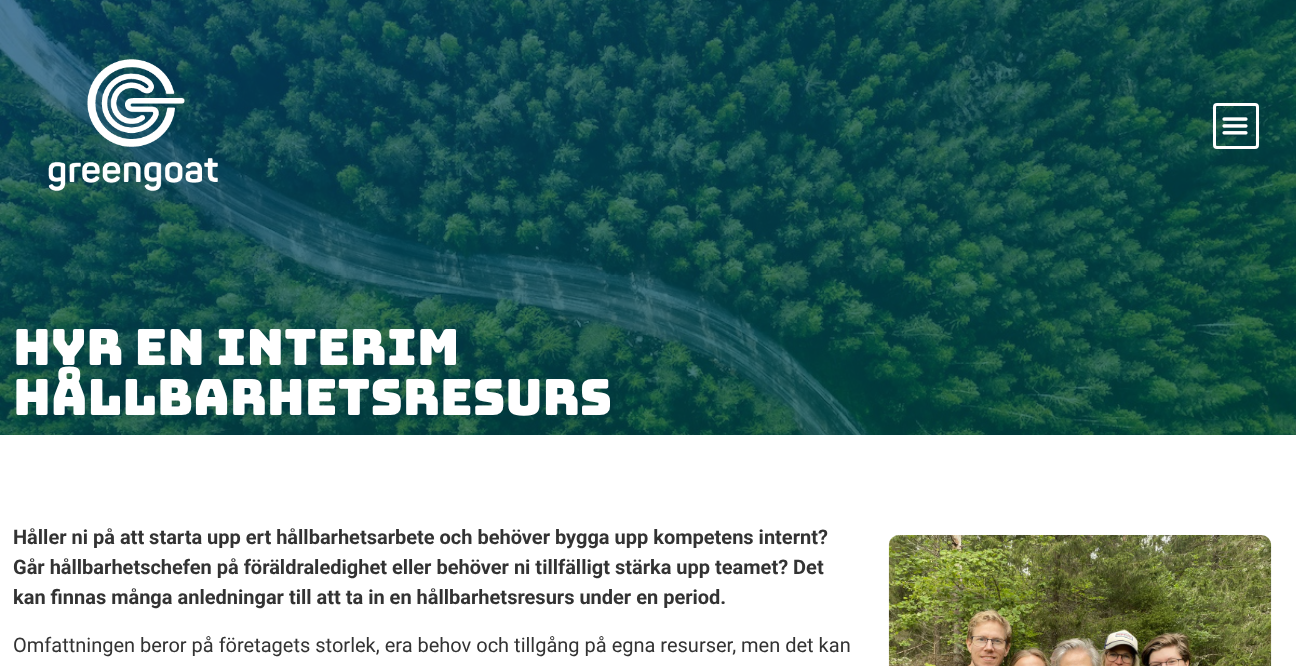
<!DOCTYPE html>
<meta charset="utf-8">
<style>body { margin: 0 } canvas { display: block }</style>
<canvas id="canvas" width="1296" height="666"></canvas>
<script type="module">
  const canvas = document.getElementById("canvas");
  const ctx = canvas.getContext("2d");
  ctx.miterLimit = 4;
  ctx.fontKerning = "normal";
  async function loadImage(src) {
    const img = new Image();
    img.src = src;
    await img.decode();
    return img;
  }

  ctx.fillStyle = "#ffffff";
  ctx.fillRect(0, 0, 1296, 666);
  ctx.drawImage(await loadImage("img3.png"), 0, 0, 1296, 435);
  ctx.drawImage(await loadImage("img1.png"), 48, 59, 170, 132);
  ctx.beginPath();
  ctx.roundRect(1214.5, 104.5, 43, 43, 2.5);
  ctx.strokeStyle = "#ffffff";
  ctx.lineWidth = 3;
  ctx.stroke();
  ctx.drawImage(await loadImage("img2.png"), 1222, 117, 26, 18);
  ctx.font = "50px Bungee";
  ctx.fillText("Hyr en interim", 13, 365);
  ctx.fillText("hållbarhetsresurs", 13, 415);
  ctx.font = "bold 20px Roboto";
  ctx.fillStyle = "#333333";
  ctx.fillText("Håller ni på att starta upp ert hållbarhetsarbete och behöver bygga upp kompetens internt?", 13, 544);
  ctx.fillText("Går hållbarhetschefen på föräldraledighet eller behöver ni tillfälligt stärka upp teamet? Det", 13, 574);
  ctx.fillText("kan finnas många anledningar till att ta in en hållbarhetsresurs under en period.", 13, 604);
  ctx.font = "20px Roboto";
  ctx.fillText("Omfattningen beror på företagets storlek, era behov och tillgång på egna resurser, men det kan", 13, 652);
  ctx.drawImage(await loadImage("img4.png"), 888, 535, 384, 131);
</script>
